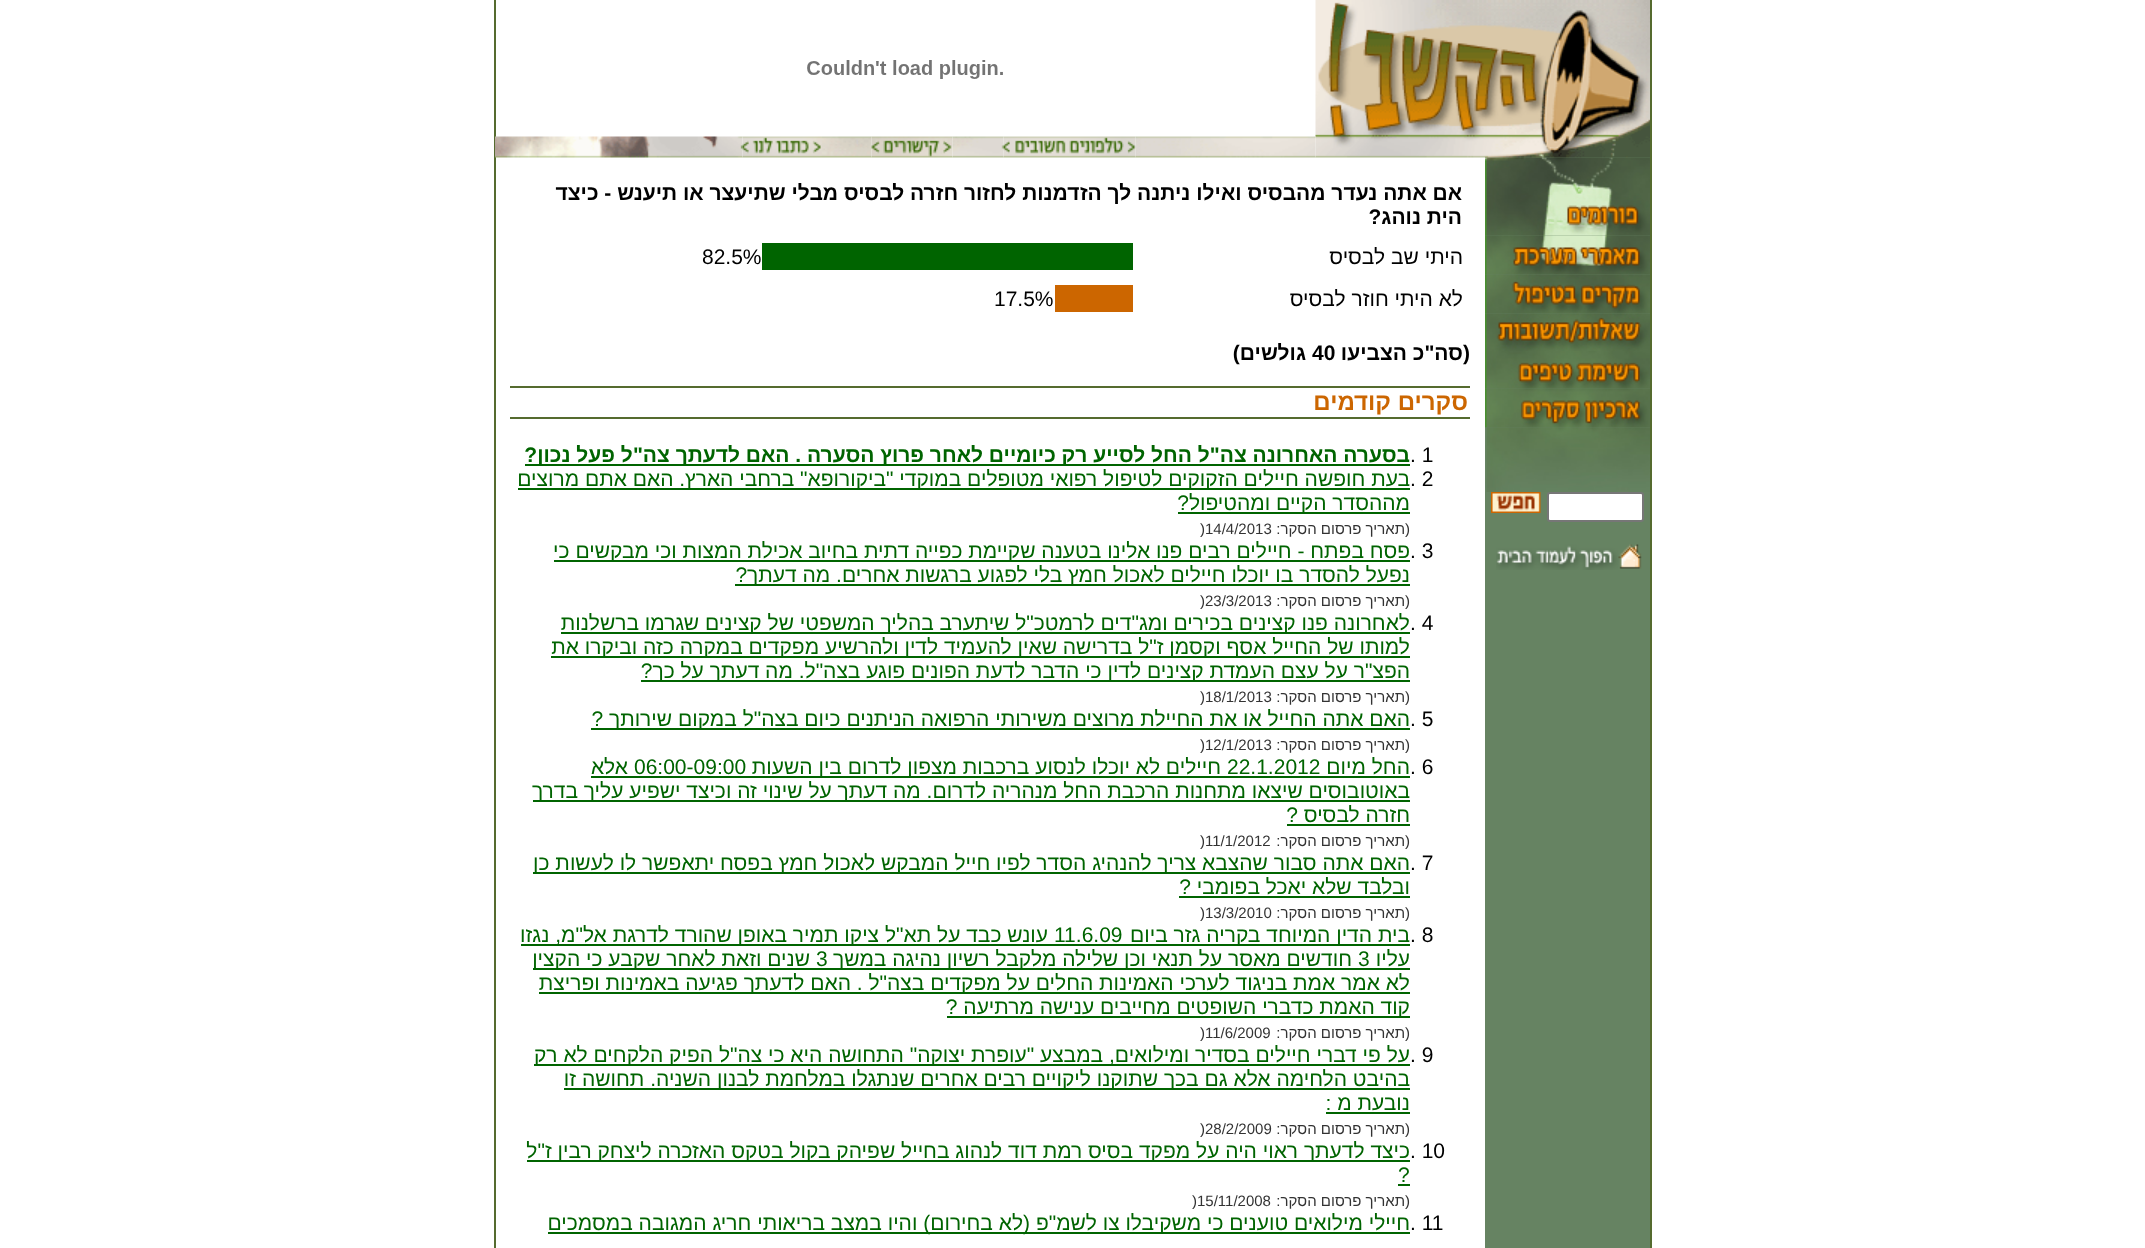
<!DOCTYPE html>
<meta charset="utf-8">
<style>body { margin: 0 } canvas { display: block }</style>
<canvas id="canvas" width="2145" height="1248"></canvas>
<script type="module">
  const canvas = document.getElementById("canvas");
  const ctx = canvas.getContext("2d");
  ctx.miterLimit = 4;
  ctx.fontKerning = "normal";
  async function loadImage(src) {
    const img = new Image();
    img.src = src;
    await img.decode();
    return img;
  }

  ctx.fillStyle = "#ffffff";
  ctx.fillRect(0, 0, 2145, 1248);
  ctx.fillStyle = "#556b2f";
  ctx.fillRect(1650, 0, 2, 1248);
  ctx.fillRect(494, 0, 2, 1248);
  ctx.fillStyle = "#668362";
  ctx.fillRect(1485, 157, 165, 1091);
  ctx.drawImage(await loadImage("img10.png"), 1485, 157, 165, 38);
  ctx.drawImage(await loadImage("img1.png"), 1315, 0, 335, 158);
  ctx.drawImage(await loadImage("img2.png"), 807, 60, 196, 19);
  ctx.drawImage(await loadImage("img7.png"), 822, 136, 50, 22);
  ctx.drawImage(await loadImage("img6.png"), 871, 136, 82, 22);
  ctx.drawImage(await loadImage("img5.png"), 952, 136, 52, 22);
  ctx.drawImage(await loadImage("img4.png"), 1003, 136, 133, 22);
  ctx.drawImage(await loadImage("img3.png"), 1135, 136, 181, 22);
  ctx.drawImage(await loadImage("img9.png"), 495, 136, 248, 22);
  ctx.drawImage(await loadImage("img8.png"), 742, 136, 80, 22);
  ctx.drawImage(await loadImage("img11.png"), 1485, 195, 165, 41);
  ctx.drawImage(await loadImage("img12.png"), 1485, 235, 165, 40);
  ctx.drawImage(await loadImage("img13.png"), 1485, 274, 165, 40);
  ctx.drawImage(await loadImage("img14.png"), 1485, 313, 165, 38);
  ctx.drawImage(await loadImage("img15.png"), 1485, 351, 165, 38);
  ctx.drawImage(await loadImage("img16.png"), 1485, 388, 165, 40);
  ctx.drawImage(await loadImage("img17.png"), 1485, 427, 165, 65);
  ctx.fillStyle = "#ffffff";
  ctx.beginPath();
  ctx.roundRect(1548, 493, 95, 28, 2);
  ctx.fill();
  ctx.strokeStyle = "#767676";
  ctx.lineWidth = 2;
  ctx.stroke();
  ctx.drawImage(await loadImage("img18.png"), 1491, 492, 50, 21);
  ctx.drawImage(await loadImage("img19.png"), 1496, 544, 146, 26);
  ctx.direction = "rtl";
  ctx.font = "bold 21px Liberation Sans";
  ctx.fillStyle = "#000000";
  ctx.fillText("אם אתה נעדר מהבסיס ואילו ניתנה לך הזדמנות לחזור חזרה לבסיס מבלי שתיעצר או תיענש - כיצד", 1462, 200);
  ctx.fillText("הית נוהג?", 1462, 224);
  ctx.font = "21px Liberation Sans";
  ctx.fillText("היתי שב לבסיס", 1463, 264);
  ctx.fillStyle = "#006400";
  ctx.fillRect(762, 243, 371, 27);
  ctx.direction = "ltr";
  ctx.fillStyle = "#000000";
  ctx.fillText("82.5%", 702, 264);
  ctx.direction = "rtl";
  ctx.fillText("לא היתי חוזר לבסיס", 1463, 306);
  ctx.fillStyle = "#cc6600";
  ctx.fillRect(1055, 285, 78, 27);
  ctx.direction = "ltr";
  ctx.fillStyle = "#000000";
  ctx.fillText("17.5%", 994, 306);
  ctx.direction = "rtl";
  ctx.font = "bold 21px Liberation Sans";
  ctx.fillText("(סה\"כ הצביעו", 1470, 360);
  ctx.direction = "ltr";
  ctx.fillText("40", 1312, 360);
  ctx.direction = "rtl";
  ctx.fillText("גולשים)", 1306, 360);
  ctx.fillStyle = "#556b2f";
  ctx.fillRect(510, 386, 960, 2);
  ctx.fillRect(510, 417, 960, 2);
  ctx.font = "bold 24px Liberation Sans";
  ctx.fillStyle = "#cc6600";
  ctx.fillText("סקרים קודמים", 1468, 410);
  ctx.direction = "ltr";
  ctx.font = "21px Liberation Sans";
  ctx.fillStyle = "#000000";
  ctx.fillText(". 1", 1410, 462);
  ctx.fillStyle = "#006400";
  ctx.fillRect(525, 464, 885, 2);
  ctx.direction = "rtl";
  ctx.font = "bold 21px Liberation Sans";
  ctx.fillText("בסערה האחרונה צה\"ל החל לסייע רק כיומיים לאחר פרוץ הסערה . האם לדעתך צה\"ל פעל נכון?", 1410, 462);
  ctx.direction = "ltr";
  ctx.font = "21px Liberation Sans";
  ctx.fillStyle = "#000000";
  ctx.fillText(". 2", 1410, 486);
  ctx.fillStyle = "#006400";
  ctx.fillRect(518, 488, 892, 2);
  ctx.direction = "rtl";
  ctx.fillText("בעת חופשה חיילים הזקוקים לטיפול רפואי מטופלים במוקדי \"ביקורופא\" ברחבי הארץ. האם אתם מרוצים", 1410, 486);
  ctx.fillRect(1178, 512, 232, 2);
  ctx.fillText("מההסדר הקיים ומהטיפול?", 1410, 510);
  ctx.font = "15px Liberation Sans";
  ctx.fillStyle = "#333333";
  ctx.fillText("(תאריך פרסום הסקר:", 1410, 534);
  ctx.direction = "ltr";
  ctx.fillText(")14/4/2013", 1200, 534);
  ctx.font = "21px Liberation Sans";
  ctx.fillStyle = "#000000";
  ctx.fillText(". 3", 1410, 558);
  ctx.fillStyle = "#006400";
  ctx.fillRect(554, 560, 856, 2);
  ctx.direction = "rtl";
  ctx.fillText("פסח בפתח - חיילים רבים פנו אלינו בטענה שקיימת כפייה דתית בחיוב אכילת המצות וכי מבקשים כי", 1410, 558);
  ctx.fillRect(735, 584, 675, 2);
  ctx.fillText("נפעל להסדר בו יוכלו חיילים לאכול חמץ בלי לפגוע ברגשות אחרים. מה דעתך?", 1410, 582);
  ctx.font = "15px Liberation Sans";
  ctx.fillStyle = "#333333";
  ctx.fillText("(תאריך פרסום הסקר:", 1410, 606);
  ctx.direction = "ltr";
  ctx.fillText(")23/3/2013", 1200, 606);
  ctx.font = "21px Liberation Sans";
  ctx.fillStyle = "#000000";
  ctx.fillText(". 4", 1410, 630);
  ctx.fillStyle = "#006400";
  ctx.fillRect(561, 632, 849, 2);
  ctx.direction = "rtl";
  ctx.fillText("לאחרונה פנו קצינים בכירים ומג\"דים לרמטכ\"ל שיתערב בהליך המשפטי של קצינים שגרמו ברשלנות", 1410, 630);
  ctx.fillRect(551, 656, 859, 2);
  ctx.fillText("למותו של החייל אסף וקסמן ז\"ל בדרישה שאין להעמיד לדין ולהרשיע מפקדים במקרה כזה וביקרו את", 1410, 654);
  ctx.fillRect(641, 680, 769, 2);
  ctx.fillText("הפצ\"ר על עצם העמדת קצינים לדין כי הדבר לדעת הפונים פוגע בצה\"ל. מה דעתך על כך?", 1410, 678);
  ctx.font = "15px Liberation Sans";
  ctx.fillStyle = "#333333";
  ctx.fillText("(תאריך פרסום הסקר:", 1410, 702);
  ctx.direction = "ltr";
  ctx.fillText(")18/1/2013", 1200, 702);
  ctx.font = "21px Liberation Sans";
  ctx.fillStyle = "#000000";
  ctx.fillText(". 5", 1410, 726);
  ctx.fillStyle = "#006400";
  ctx.fillRect(591, 728, 819, 2);
  ctx.direction = "rtl";
  ctx.fillText("האם אתה החייל או את החיילת מרוצים משירותי הרפואה הניתנים כיום בצה\"ל במקום שירותך ?", 1410, 726);
  ctx.font = "15px Liberation Sans";
  ctx.fillStyle = "#333333";
  ctx.fillText("(תאריך פרסום הסקר:", 1410, 750);
  ctx.direction = "ltr";
  ctx.fillText(")12/1/2013", 1200, 750);
  ctx.font = "21px Liberation Sans";
  ctx.fillStyle = "#000000";
  ctx.fillText(". 6", 1410, 774);
  ctx.direction = "rtl";
  ctx.fillStyle = "#006400";
  ctx.fillText("החל מיום", 1410, 774);
  ctx.direction = "ltr";
  ctx.fillText("22.1.2012", 1227, 774);
  ctx.fillRect(591, 776, 819, 2);
  ctx.direction = "rtl";
  ctx.fillText("חיילים לא יוכלו לנסוע ברכבות מצפון לדרום בין השעות", 1221, 774);
  ctx.direction = "ltr";
  ctx.fillText("06:00-09:00", 634, 774);
  ctx.direction = "rtl";
  ctx.fillText("אלא", 628, 774);
  ctx.fillRect(533, 800, 877, 2);
  ctx.fillText("באוטובוסים שיצאו מתחנות הרכבת החל מנהריה לדרום. מה דעתך על שינוי זה וכיצד ישפיע עליך בדרך", 1410, 798);
  ctx.fillText("חזרה לבסיס ?", 1410, 822);
  ctx.fillRect(1287, 824, 123, 2);
  ctx.font = "15px Liberation Sans";
  ctx.fillStyle = "#333333";
  ctx.fillText("(תאריך פרסום הסקר:", 1410, 846);
  ctx.direction = "ltr";
  ctx.fillText(")11/1/2012", 1200, 846);
  ctx.font = "21px Liberation Sans";
  ctx.fillStyle = "#000000";
  ctx.fillText(". 7", 1410, 870);
  ctx.fillStyle = "#006400";
  ctx.fillRect(533, 872, 877, 2);
  ctx.direction = "rtl";
  ctx.fillText("האם אתה סבור שהצבא צריך להנהיג הסדר לפיו חייל המבקש לאכול חמץ בפסח יתאפשר לו לעשות כן", 1410, 870);
  ctx.fillText("ובלבד שלא יאכל בפומבי ?", 1410, 894);
  ctx.fillRect(1179, 896, 231, 2);
  ctx.font = "15px Liberation Sans";
  ctx.fillStyle = "#333333";
  ctx.fillText("(תאריך פרסום הסקר:", 1410, 918);
  ctx.direction = "ltr";
  ctx.fillText(")13/3/2010", 1200, 918);
  ctx.font = "21px Liberation Sans";
  ctx.fillStyle = "#000000";
  ctx.fillText(". 8", 1410, 942);
  ctx.fillStyle = "#006400";
  ctx.fillRect(521, 944, 889, 2);
  ctx.direction = "rtl";
  ctx.fillText("בית הדין המיוחד בקריה גזר ביום", 1410, 942);
  ctx.direction = "ltr";
  ctx.fillText("11.6.09", 1054, 942);
  ctx.direction = "rtl";
  ctx.fillText("עונש כבד על תא\"ל ציקו תמיר באופן שהורד לדרגת אל\"מ, נגזו", 1048, 942);
  ctx.fillText("עליו", 1410, 966);
  ctx.direction = "ltr";
  ctx.fillText("3", 1358, 966);
  ctx.fillRect(533, 968, 877, 2);
  ctx.direction = "rtl";
  ctx.fillText("חודשים מאסר על תנאי וכן שלילה מלקבל רשיון נהיגה במשך", 1352, 966);
  ctx.direction = "ltr";
  ctx.fillText("3", 816, 966);
  ctx.direction = "rtl";
  ctx.fillText("שנים וזאת לאחר שקבע כי הקצין", 810, 966);
  ctx.fillRect(539, 992, 871, 2);
  ctx.fillText("לא אמר אמת בניגוד לערכי האמינות החלים על מפקדים בצה\"ל . האם לדעתך פגיעה באמינות ופריצת", 1410, 990);
  ctx.fillRect(947, 1016, 463, 2);
  ctx.fillText("קוד האמת כדברי השופטים מחייבים ענישה מרתיעה ?", 1410, 1014);
  ctx.font = "15px Liberation Sans";
  ctx.fillStyle = "#333333";
  ctx.fillText("(תאריך פרסום הסקר:", 1410, 1038);
  ctx.direction = "ltr";
  ctx.fillText(")11/6/2009", 1200, 1038);
  ctx.font = "21px Liberation Sans";
  ctx.fillStyle = "#000000";
  ctx.fillText(". 9", 1410, 1062);
  ctx.fillStyle = "#006400";
  ctx.fillRect(534, 1064, 876, 2);
  ctx.direction = "rtl";
  ctx.fillText("על פי דברי חיילים בסדיר ומילואים, במבצע \"עופרת יצוקה\" התחושה היא כי צה\"ל הפיק הלקחים לא רק", 1410, 1062);
  ctx.fillRect(564, 1088, 846, 2);
  ctx.fillText("בהיבט הלחימה אלא גם בכך שתוקנו ליקויים רבים אחרים שנתגלו במלחמת לבנון השניה. תחושה זו", 1410, 1086);
  ctx.fillText("נובעת מ :", 1410, 1110);
  ctx.fillRect(1326, 1112, 84, 2);
  ctx.font = "15px Liberation Sans";
  ctx.fillStyle = "#333333";
  ctx.fillText("(תאריך פרסום הסקר:", 1410, 1134);
  ctx.direction = "ltr";
  ctx.fillText(")28/2/2009", 1200, 1134);
  ctx.font = "21px Liberation Sans";
  ctx.fillStyle = "#000000";
  ctx.fillText(". 10", 1410, 1158);
  ctx.fillStyle = "#006400";
  ctx.fillRect(527, 1160, 883, 2);
  ctx.direction = "rtl";
  ctx.fillText("כיצד לדעתך ראוי היה על מפקד בסיס רמת דוד לנהוג בחייל שפיהק בקול בטקס האזכרה ליצחק רבין ז\"ל", 1410, 1158);
  ctx.direction = "ltr";
  ctx.fillText("?", 1398, 1182);
  ctx.fillRect(1398, 1184, 12, 2);
  ctx.direction = "rtl";
  ctx.font = "15px Liberation Sans";
  ctx.fillStyle = "#333333";
  ctx.fillText("(תאריך פרסום הסקר:", 1410, 1206);
  ctx.direction = "ltr";
  ctx.fillText(")15/11/2008", 1192, 1206);
  ctx.font = "21px Liberation Sans";
  ctx.fillStyle = "#000000";
  ctx.fillText(". 11", 1410, 1230);
  ctx.fillStyle = "#006400";
  ctx.fillRect(548, 1232, 862, 2);
  ctx.direction = "rtl";
  ctx.fillText("חיילי מילואים טוענים כי משקיבלו צו לשמ\"פ (לא בחירום) והיו במצב בריאותי חריג המגובה במסמכים", 1410, 1230);
</script>
